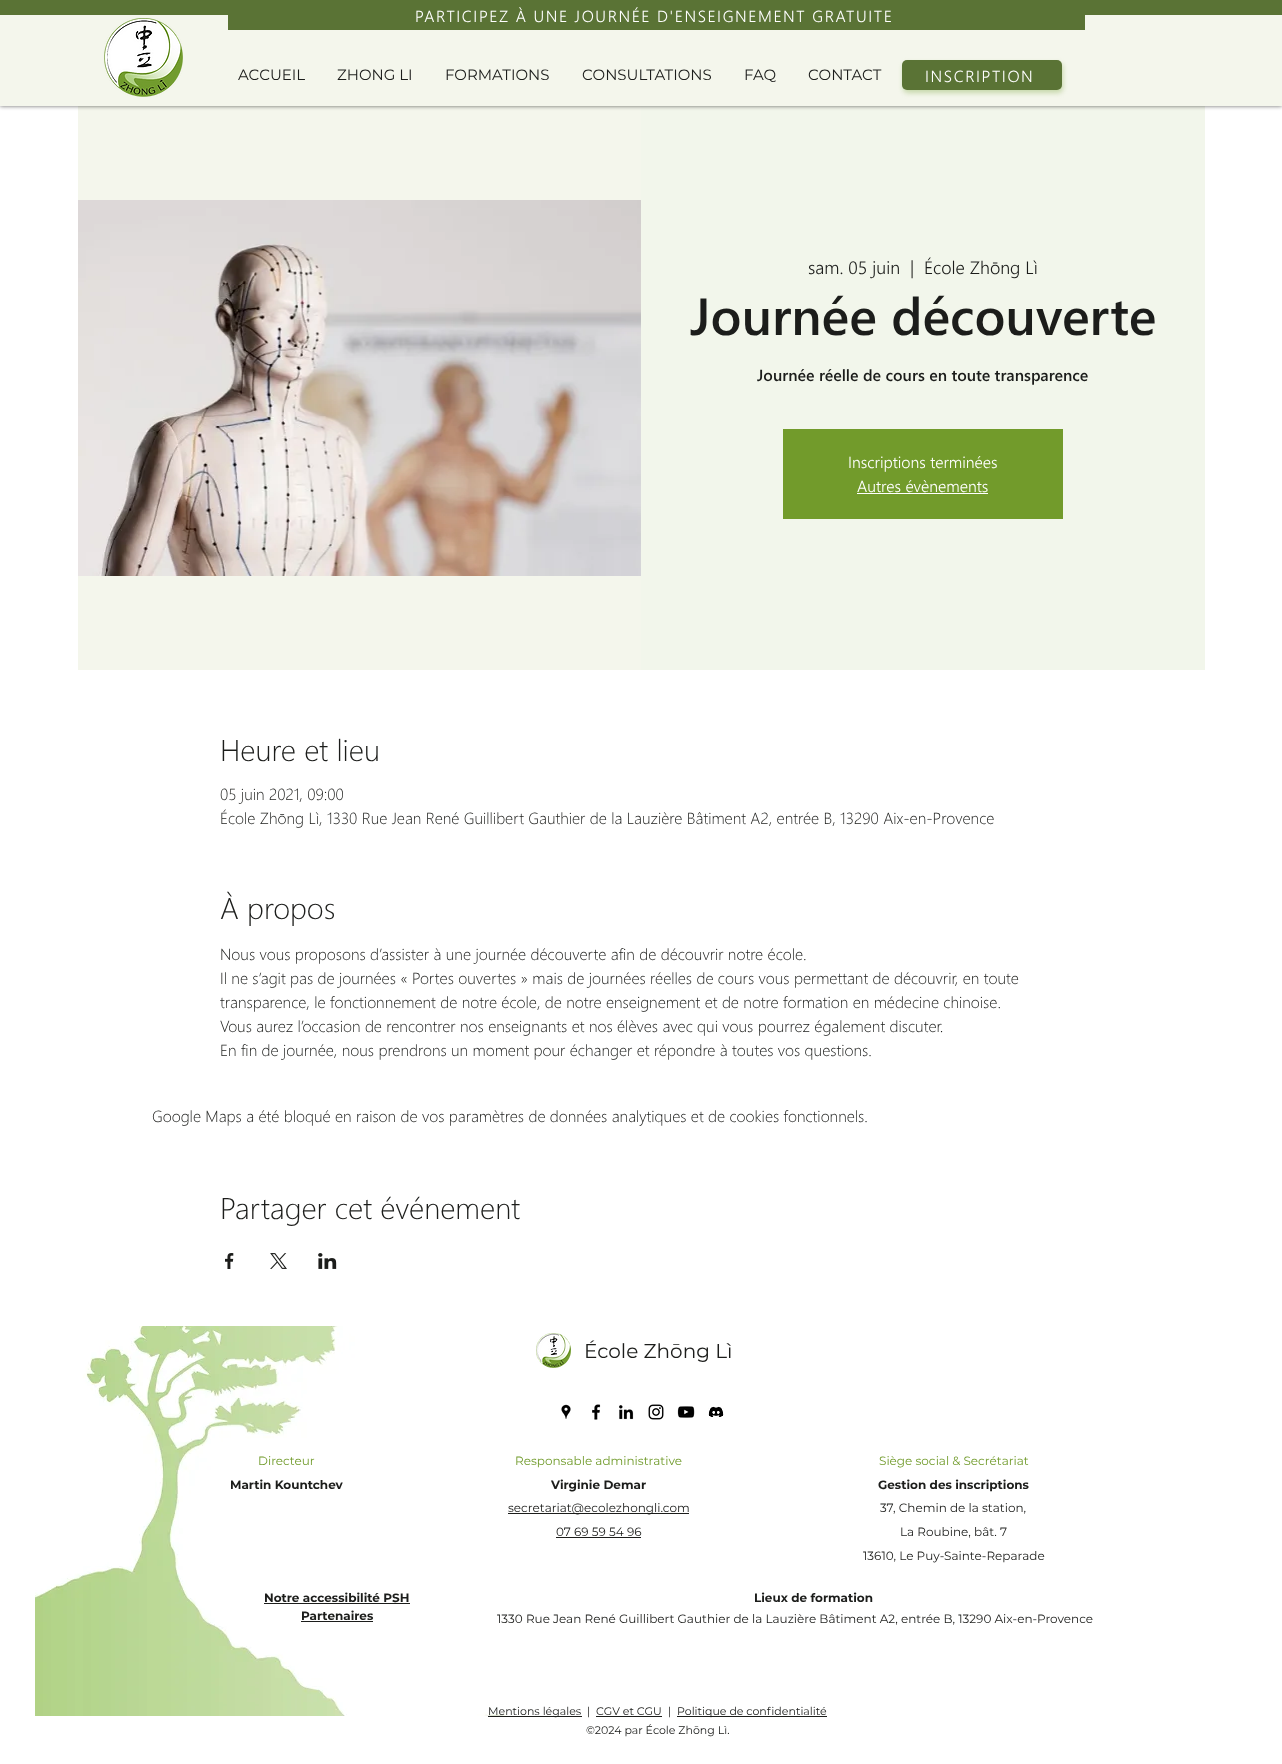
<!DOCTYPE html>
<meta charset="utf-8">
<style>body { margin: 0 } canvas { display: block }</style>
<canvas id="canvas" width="1282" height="1764"></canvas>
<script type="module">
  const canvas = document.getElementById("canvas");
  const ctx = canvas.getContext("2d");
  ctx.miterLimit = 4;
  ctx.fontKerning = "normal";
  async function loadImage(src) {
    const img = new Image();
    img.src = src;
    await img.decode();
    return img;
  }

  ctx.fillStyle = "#ffffff";
  ctx.fillRect(0, 0, 1282, 1764);
  ctx.fillStyle = "#f4f6ec";
  ctx.fillRect(78, 106, 563, 564);
  ctx.fillStyle = "#f2f6eb";
  ctx.fillRect(641, 106, 564, 564);
  ctx.fillStyle = "rgba(0, 0, 0, 0.6)";
  ctx.filter = "blur(2px)";
  ctx.beginPath();
  ctx.rect(0, 0, 1282, 106);
  ctx.fill();
  ctx.filter = "none";
  ctx.fillStyle = "#5a7335";
  ctx.fillRect(0, 0, 1282, 15);
  ctx.fillStyle = "#f4f6ec";
  ctx.fillRect(0, 15, 1282, 91);
  ctx.fillStyle = "#5a7335";
  ctx.fillRect(228, 15, 857, 15);
  ctx.letterSpacing = "1.6px";
  ctx.font = "300 16px Segoe UI";
  ctx.fillStyle = "#ffffff";
  ctx.fillText("PARTICIPEZ À UNE JOURNÉE D'ENSEIGNEMENT GRATUITE", 415, 22);
  ctx.drawImage(await loadImage("img1.png"), 104, 18, 79, 79);
  ctx.letterSpacing = "0px";
  ctx.font = "15px Montserrat";
  ctx.fillStyle = "#1c1d1b";
  ctx.fillText("ACCUEIL", 238, 80);
  ctx.fillText("ZHONG LI", 337, 80);
  ctx.fillText("FORMATIONS", 445, 80);
  ctx.fillText("CONSULTATIONS", 582, 80);
  ctx.fillText("FAQ", 744, 80);
  ctx.fillText("CONTACT", 808, 80);
  ctx.fillStyle = "rgba(174, 200, 136, 0.66)";
  ctx.filter = "blur(2.5px)";
  ctx.beginPath();
  ctx.roundRect(903, 63, 160, 30, 5);
  ctx.fill();
  ctx.filter = "none";
  ctx.fillStyle = "#5a7335";
  ctx.beginPath();
  ctx.roundRect(902, 60, 160, 30, 5);
  ctx.fill();
  ctx.letterSpacing = "1.6px";
  ctx.font = "300 16px Segoe UI";
  ctx.fillStyle = "#ffffff";
  ctx.fillText("INSCRIPTION", 925, 82);
  ctx.drawImage(await loadImage("img2.png"), 78, 200, 563, 376);
  ctx.letterSpacing = "0px";
  ctx.font = "300 18px Segoe UI";
  ctx.fillStyle = "#1c1d1b";
  ctx.fillText("sam. 05 juin", 808, 274);
  ctx.fillText("|", 910, 274);
  ctx.fillText("École Zhōng Lì", 924, 274);
  ctx.font = "600 52px Segoe UI";
  ctx.fillText("Journée découverte", 690, 335);
  ctx.font = "600 16px Segoe UI";
  ctx.fillText("Journée réelle de cours en toute transparence", 757, 381);
  ctx.fillStyle = "#729b2b";
  ctx.fillRect(783, 429, 280, 90);
  ctx.font = "300 16px Segoe UI";
  ctx.fillStyle = "#ffffff";
  ctx.fillText("Inscriptions terminées", 848, 468);
  ctx.fillText("Autres évènements", 857, 492);
  ctx.fillRect(857, 493, 131, 1);
  ctx.font = "300 30px 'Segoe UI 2'";
  ctx.fillStyle = "#1c1d1b";
  ctx.fillText("Heure et lieu", 220, 761);
  ctx.font = "300 16px 'Segoe UI 2'";
  ctx.fillText("05 juin 2021, 09:00", 220, 800);
  ctx.fillText("École Zhōng Lì, 1330 Rue Jean René Guillibert Gauthier de la Lauzière Bâtiment A2, entrée B, 13290 Aix-en-Provence", 220, 824);
  ctx.font = "300 30px 'Segoe UI 2'";
  ctx.fillText("À propos", 220, 919);
  ctx.font = "300 16px 'Segoe UI 2'";
  ctx.fillText("Nous vous proposons d’assister à une journée découverte afin de découvrir notre école.", 220, 960);
  ctx.fillText("Il ne s’agit pas de journées « Portes ouvertes » mais de journées réelles de cours vous permettant de découvrir, en toute", 220, 984);
  ctx.fillText("transparence, le fonctionnement de notre école, de notre enseignement et de notre formation en médecine chinoise.", 220, 1008);
  ctx.fillText("Vous aurez l’occasion de rencontrer nos enseignants et nos élèves avec qui vous pourrez également discuter.", 220, 1032);
  ctx.fillText("En fin de journée, nous prendrons un moment pour échanger et répondre à toutes vos questions.", 220, 1056);
  ctx.fillText("Google Maps a été bloqué en raison de vos paramètres de données analytiques et de cookies fonctionnels.", 152, 1122);
  ctx.font = "300 30px 'Segoe UI 2'";
  ctx.fillText("Partager cet événement", 220, 1219);
  ctx.drawImage(await loadImage("img3.png"), 225, 1253, 9, 16);
  ctx.drawImage(await loadImage("img4.png"), 270, 1253, 17, 16);
  ctx.drawImage(await loadImage("img5.png"), 318, 1253, 19, 16);
  ctx.drawImage(await loadImage("img6.png"), 35, 1326, 472, 390);
  ctx.drawImage(await loadImage("img7.png"), 536, 1333, 35, 35);
  ctx.font = "20px Montserrat";
  ctx.fillText("École Zhōng Lì", 584, 1358);
  ctx.drawImage(await loadImage("img8.png"), 561, 1404, 10, 15);
  ctx.drawImage(await loadImage("img9.png"), 592, 1404, 9, 16);
  ctx.drawImage(await loadImage("img10.png"), 619, 1405, 15, 15);
  ctx.drawImage(await loadImage("img11.png"), 648, 1404, 16, 16);
  ctx.drawImage(await loadImage("img12.png"), 677, 1406, 18, 12);
  ctx.drawImage(await loadImage("img13.png"), 708, 1406, 16, 13);
  ctx.font = "12px Montserrat";
  ctx.fillStyle = "#729c2d";
  ctx.fillText("Directeur", 258, 1465);
  ctx.font = "bold 12px Montserrat";
  ctx.fillStyle = "#1c1d1b";
  ctx.fillText("Martin Kountchev", 230, 1489);
  ctx.font = "12px Montserrat";
  ctx.fillStyle = "#729c2d";
  ctx.fillText("Responsable administrative", 515, 1465);
  ctx.font = "bold 12px Montserrat";
  ctx.fillStyle = "#1c1d1b";
  ctx.fillText("Virginie Demar", 551, 1489);
  ctx.fillRect(508, 1513, 181, 1);
  ctx.font = "12px Montserrat";
  ctx.fillText("secretariat@ecolezhongli.com", 508, 1512);
  ctx.fillText("07 69 59 54 96", 556, 1536);
  ctx.fillRect(556, 1537, 85, 1);
  ctx.fillStyle = "#729c2d";
  ctx.fillText("Siège social & Secrétariat", 879, 1465);
  ctx.font = "bold 12px Montserrat";
  ctx.fillStyle = "#1c1d1b";
  ctx.fillText("Gestion des inscriptions", 878, 1489);
  ctx.font = "12px Montserrat";
  ctx.fillText("37, Chemin de la station,", 880, 1512);
  ctx.fillText("La Roubine, bât. 7", 900, 1536);
  ctx.fillText("13610, Le Puy-Sainte-Reparade", 863, 1560);
  ctx.font = "bold 12px Montserrat";
  ctx.fillText("Notre accessibilité PSH", 264, 1602);
  ctx.fillRect(264, 1603, 146, 1);
  ctx.fillText("Partenaires", 301, 1620);
  ctx.fillRect(301, 1621, 72, 1);
  ctx.fillText("Lieux de formation", 754, 1602);
  ctx.font = "12px Montserrat";
  ctx.fillText("1330 Rue Jean René Guillibert Gauthier de la Lauzière Bâtiment A2, entrée B, 13290 Aix-en-Provence", 497, 1623);
  ctx.fillRect(488, 1716, 94, 1);
  ctx.font = "11px Montserrat";
  ctx.fillText("Mentions légales", 488, 1715);
  ctx.fillText("|", 587, 1715);
  ctx.fillText("CGV et CGU", 596, 1715);
  ctx.fillRect(596, 1716, 66, 1);
  ctx.fillText("|", 668, 1715);
  ctx.fillRect(677, 1716, 150, 1);
  ctx.fillText("Politique de confidentialité", 677, 1715);
  ctx.fillText("©2024 par École Zhōng Lì.", 586, 1734);
</script>
